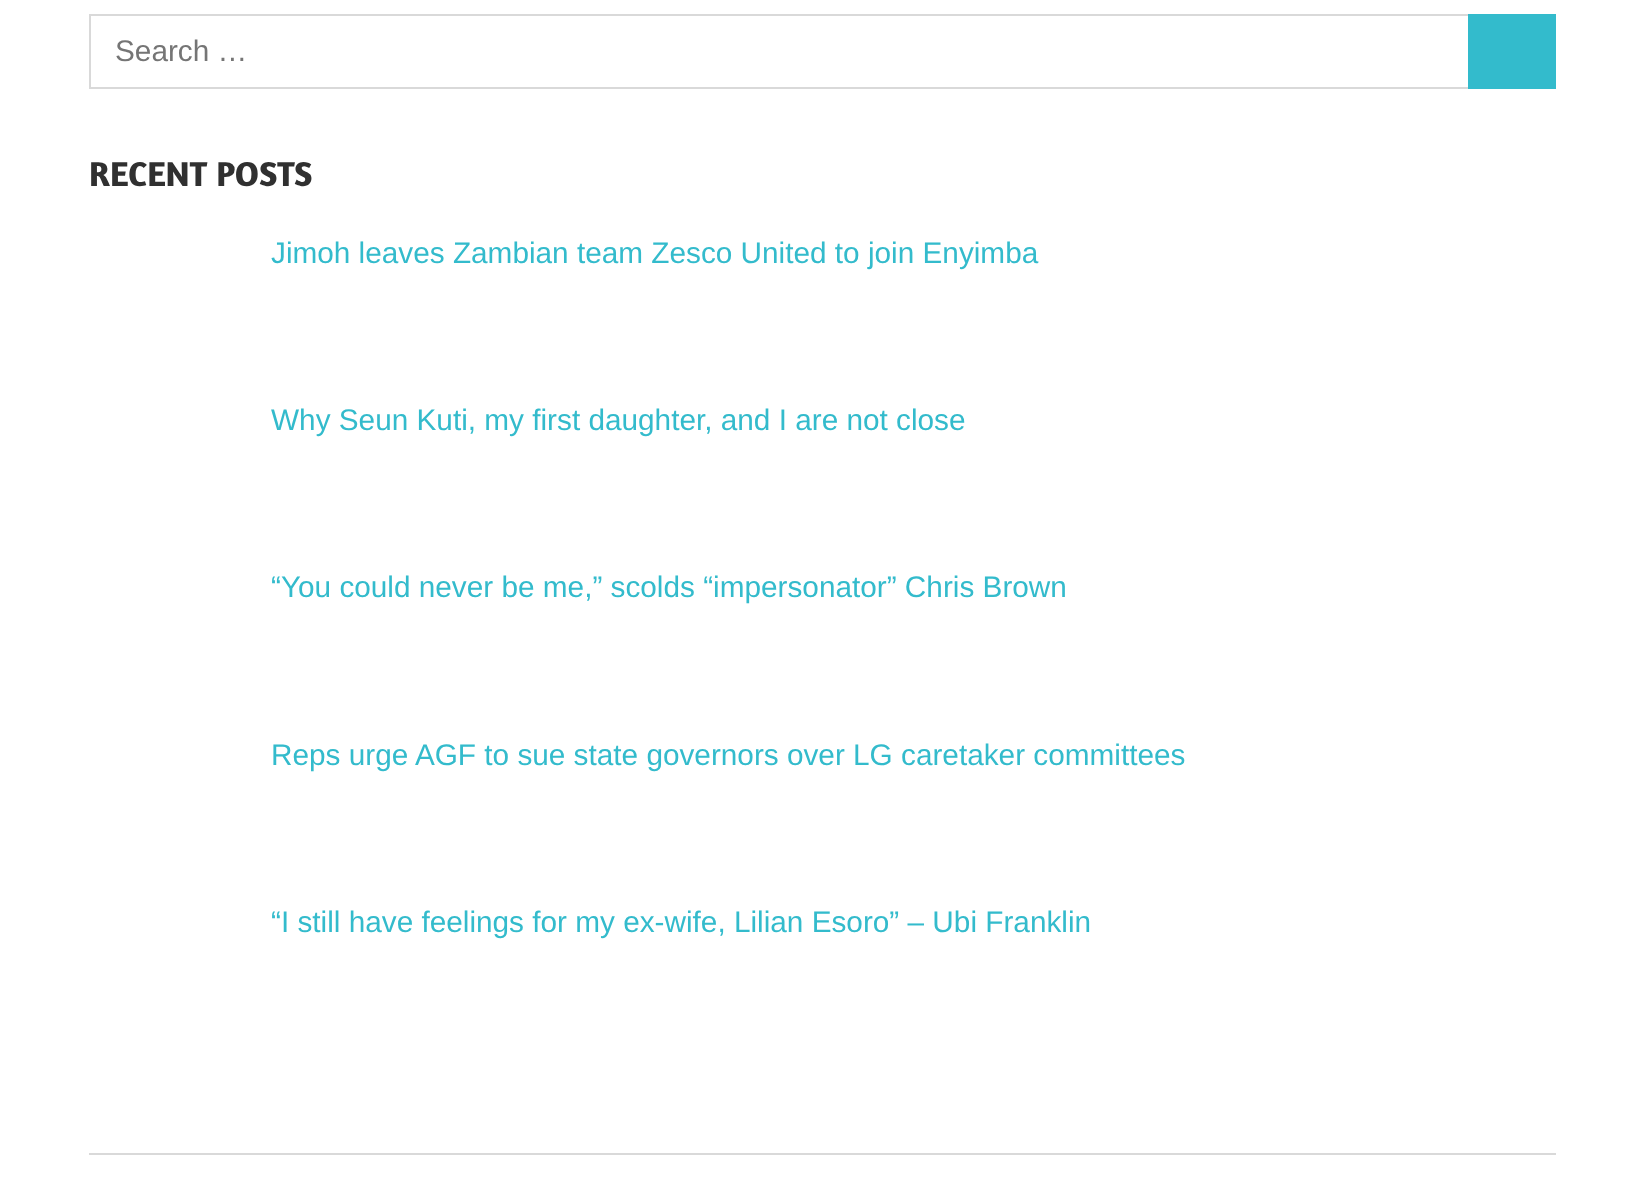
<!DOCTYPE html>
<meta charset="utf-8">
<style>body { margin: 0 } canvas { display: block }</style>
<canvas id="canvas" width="1644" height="1185"></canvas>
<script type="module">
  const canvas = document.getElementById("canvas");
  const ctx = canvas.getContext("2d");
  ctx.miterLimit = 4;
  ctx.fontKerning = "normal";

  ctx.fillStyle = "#ffffff";
  ctx.fillRect(0, 0, 1644, 1185);
  ctx.strokeStyle = "#d9d9d9";
  ctx.lineWidth = 2;
  ctx.strokeRect(90, 15, 1379, 73);
  ctx.font = "29.75px Liberation Sans";
  ctx.fillStyle = "#757575";
  ctx.fillText("Search …", 115, 61);
  ctx.fillStyle = "#33bbcc";
  ctx.fillRect(1468, 14, 88, 75);
  ctx.font = "bold 35px Amaranth";
  ctx.fillStyle = "#303030";
  ctx.fillText("RECENT POSTS", 89, 186);
  ctx.font = "29.75px Liberation Sans";
  ctx.fillStyle = "#33bbcc";
  ctx.fillText("Jimoh leaves Zambian team Zesco United to join Enyimba", 271, 263);
  ctx.fillText("Why Seun Kuti, my first daughter, and I are not close", 271, 430);
  ctx.fillText("“You could never be me,” scolds “impersonator” Chris Brown", 271, 597);
  ctx.fillText("Reps urge AGF to sue state governors over LG caretaker committees", 271, 765);
  ctx.fillText("“I still have feelings for my ex-wife, Lilian Esoro” – Ubi Franklin", 271, 932);
  ctx.fillStyle = "#d9d9d9";
  ctx.fillRect(89, 1153, 1467, 2);
</script>
